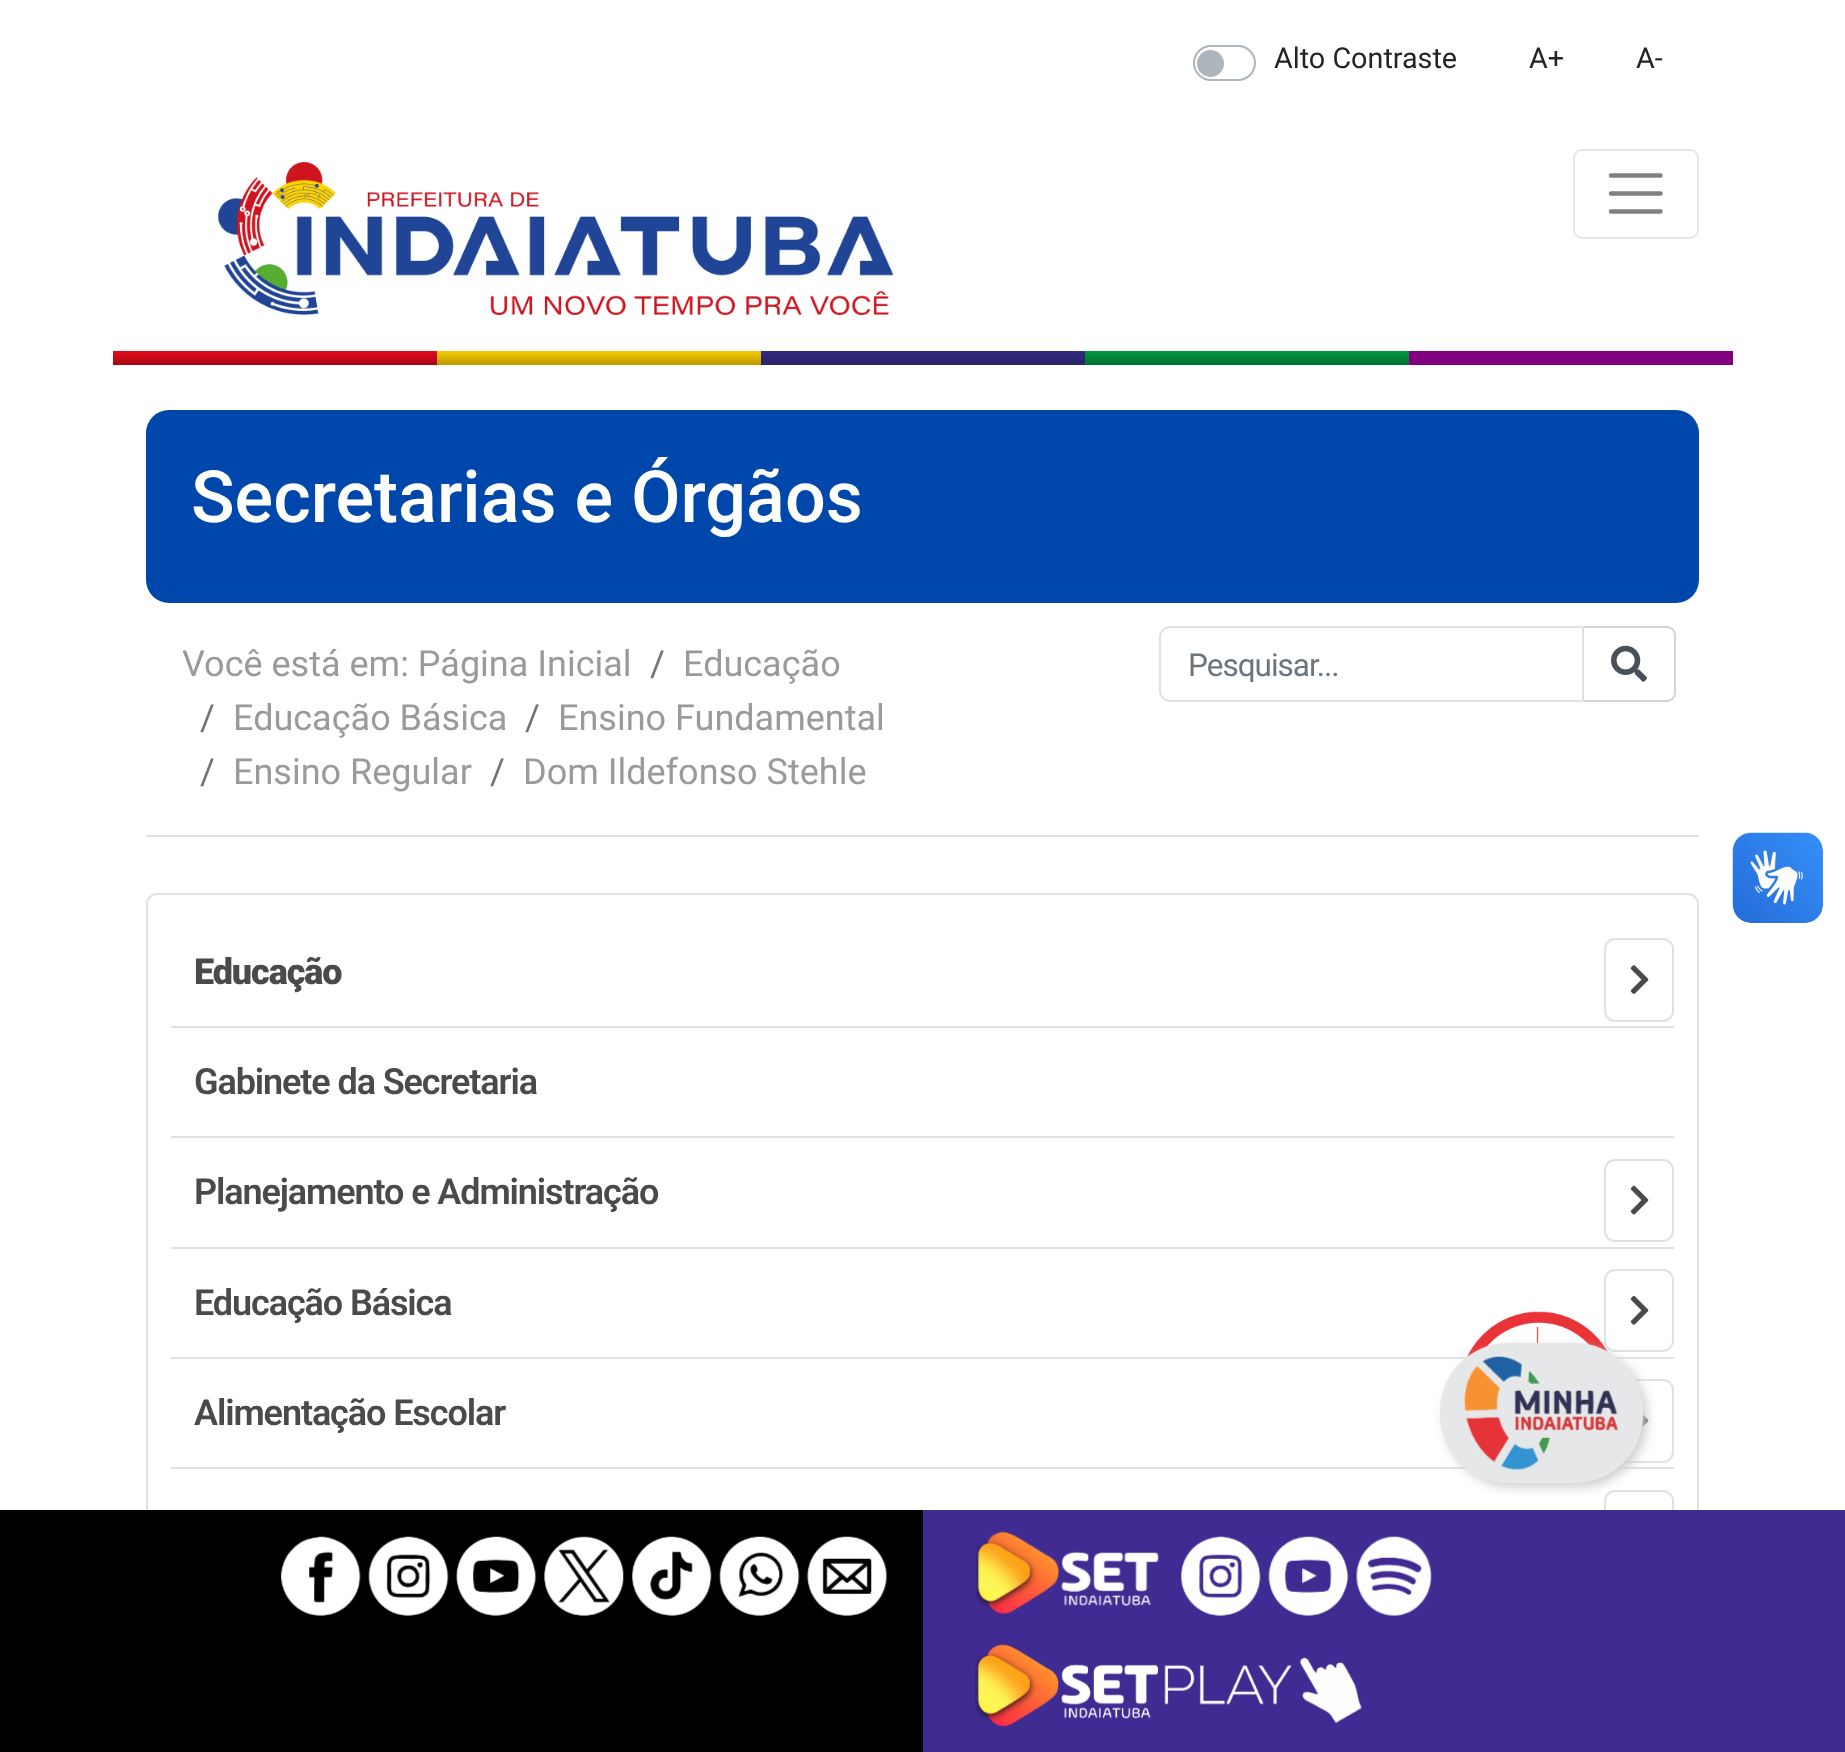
<!DOCTYPE html>
<meta charset="utf-8">
<style>body { margin: 0 } canvas { display: block }</style>
<canvas id="canvas" width="1845" height="1752"></canvas>
<script type="module">
  const canvas = document.getElementById("canvas");
  const ctx = canvas.getContext("2d");
  ctx.miterLimit = 4;
  ctx.fontKerning = "normal";
  async function loadImage(src) {
    const img = new Image();
    img.src = src;
    await img.decode();
    return img;
  }
  let gradient;

  ctx.fillStyle = "#ffffff";
  ctx.fillRect(0, 0, 1845, 1752);
  ctx.beginPath();
  ctx.roundRect(1194, 46, 61, 34, 17);
  ctx.strokeStyle = "#adb5bd";
  ctx.lineWidth = 2;
  ctx.stroke();
  ctx.font = "28.75px Roboto";
  ctx.fillStyle = "#212529";
  ctx.fillText("Alto Contraste", 1274, 68);
  ctx.fillStyle = "#adb5bd";
  ctx.beginPath();
  ctx.arc(1210.5, 63.5, 13.5, 0, Math.PI * 2);
  ctx.fill();
  ctx.fillStyle = "#212529";
  ctx.fillText("A+", 1529, 68);
  ctx.fillText("A-", 1636, 68);
  ctx.drawImage(await loadImage("img1.png"), 218, 162, 676, 153);
  ctx.beginPath();
  ctx.roundRect(1574, 150, 124, 88, 8);
  ctx.strokeStyle = "#e6e6e6";
  ctx.stroke();
  ctx.beginPath();
  ctx.moveTo(1611, 175.5);
  ctx.lineTo(1660.5, 175.5);
  ctx.moveTo(1611, 193.5);
  ctx.lineTo(1660.5, 193.5);
  ctx.moveTo(1611, 211.5);
  ctx.lineTo(1660.5, 211.5);
  ctx.strokeStyle = "#808080";
  ctx.lineWidth = 4.5;
  ctx.lineCap = "round";
  ctx.stroke();
  gradient = ctx.createLinearGradient(113, 351, 113, 365);
  gradient.addColorStop(0, "#e40c19");
  gradient.addColorStop(1, "#a80613");
  ctx.fillStyle = gradient;
  ctx.fillRect(113, 351, 324, 14);
  gradient = ctx.createLinearGradient(437, 351, 437, 365);
  gradient.addColorStop(0, "#f7cc02");
  gradient.addColorStop(1, "#ba9700");
  ctx.fillStyle = gradient;
  ctx.fillRect(437, 351, 324, 14);
  gradient = ctx.createLinearGradient(761, 351, 761, 365);
  gradient.addColorStop(0, "#332984");
  gradient.addColorStop(1, "#2b2464");
  ctx.fillStyle = gradient;
  ctx.fillRect(761, 351, 324, 14);
  gradient = ctx.createLinearGradient(1085, 351, 1085, 365);
  gradient.addColorStop(0, "#029741");
  gradient.addColorStop(1, "#007035");
  ctx.fillStyle = gradient;
  ctx.fillRect(1085, 351, 324, 14);
  ctx.fillStyle = "#800080";
  ctx.fillRect(1409, 351, 324, 14);
  ctx.fillStyle = "#0047ab";
  ctx.beginPath();
  ctx.roundRect(146, 410, 1553, 193, 23);
  ctx.fill();
  ctx.font = "500 72px Roboto";
  ctx.fillStyle = "#ffffff";
  ctx.fillText("Secretarias e Órgãos", 191, 522);
  ctx.font = "36px Roboto";
  ctx.fillStyle = "#999a9a";
  ctx.fillText("Você está em: Página Inicial", 182, 676);
  ctx.fillStyle = "#6c757d";
  ctx.fillText("/", 650, 676);
  ctx.fillStyle = "#999a9a";
  ctx.fillText("Educação", 683, 676);
  ctx.fillStyle = "#6c757d";
  ctx.fillText("/", 200, 730);
  ctx.fillStyle = "#999a9a";
  ctx.fillText("Educação Básica", 233, 730);
  ctx.fillStyle = "#6c757d";
  ctx.fillText("/", 525, 730);
  ctx.fillStyle = "#999a9a";
  ctx.fillText("Ensino Fundamental", 558, 730);
  ctx.fillStyle = "#6c757d";
  ctx.fillText("/", 200, 784);
  ctx.fillStyle = "#999a9a";
  ctx.fillText("Ensino Regular", 233, 784);
  ctx.fillStyle = "#6c757d";
  ctx.fillText("/", 490, 784);
  ctx.fillStyle = "#999a9a";
  ctx.fillText("Dom Ildefonso Stehle", 523, 784);
  ctx.beginPath();
  ctx.roundRect(1583, 627, 92, 74, [0, 8, 8, 0]);
  ctx.strokeStyle = "#ced4da";
  ctx.lineWidth = 2;
  ctx.stroke();
  ctx.beginPath();
  ctx.roundRect(1160, 627, 423, 74, [10, 0, 0, 10]);
  ctx.strokeStyle = "#dee2e6";
  ctx.stroke();
  ctx.save();
  ctx.beginPath();
  ctx.rect(1188, 646, 335, 36);
  ctx.clip();
  ctx.letterSpacing = "-1px";
  ctx.font = "31.5px Roboto";
  ctx.fillStyle = "#6c757d";
  ctx.fillText("Pesquisar...", 1188, 676);
  ctx.restore();
  ctx.drawImage(await loadImage("img2.png"), 1611, 645, 36, 37);
  ctx.fillStyle = "#dee2e6";
  ctx.fillRect(146, 835, 1553, 2);
  ctx.beginPath();
  ctx.roundRect(147, 894, 1551, 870, 10);
  ctx.stroke();
  ctx.fillRect(171, 1026, 1503, 2);
  ctx.letterSpacing = "-1.1px";
  ctx.font = "900 36px Roboto";
  ctx.fillStyle = "#4a4a4a";
  ctx.fillText("Educação", 194, 984);
  ctx.beginPath();
  ctx.roundRect(1605, 939, 68, 82, 10);
  ctx.stroke();
  ctx.drawImage(await loadImage("img3.png"), 1630, 965, 19, 29);
  ctx.fillStyle = "#dee2e6";
  ctx.fillRect(171, 1136, 1503, 2);
  ctx.font = "600 36px Roboto";
  ctx.fillStyle = "#4a4a4a";
  ctx.fillText("Gabinete da Secretaria", 194, 1094);
  ctx.fillStyle = "#dee2e6";
  ctx.fillRect(171, 1247, 1503, 2);
  ctx.fillStyle = "#4a4a4a";
  ctx.fillText("Planejamento e Administração", 194, 1204);
  ctx.beginPath();
  ctx.roundRect(1605, 1160, 68, 81, 10);
  ctx.stroke();
  ctx.drawImage(await loadImage("img4.png"), 1630, 1185, 19, 30);
  ctx.fillStyle = "#dee2e6";
  ctx.fillRect(171, 1357, 1503, 2);
  ctx.fillStyle = "#4a4a4a";
  ctx.fillText("Educação Básica", 194, 1315);
  ctx.beginPath();
  ctx.roundRect(1605, 1270, 68, 81, 10);
  ctx.stroke();
  ctx.drawImage(await loadImage("img5.png"), 1630, 1296, 19, 29);
  ctx.fillStyle = "#dee2e6";
  ctx.fillRect(171, 1467, 1503, 2);
  ctx.fillStyle = "#4a4a4a";
  ctx.fillText("Alimentação Escolar", 194, 1425);
  ctx.beginPath();
  ctx.roundRect(1605, 1380, 68, 82, 10);
  ctx.stroke();
  ctx.drawImage(await loadImage("img6.png"), 1641, 1414, 8, 15);
  ctx.beginPath();
  ctx.roundRect(1605, 1491, 68, 81, 10);
  ctx.stroke();
  ctx.drawImage(await loadImage("img7.png"), 1732, 832, 91, 91);
  ctx.drawImage(await loadImage("img8.png"), 1733, 833, 90, 90);
  ctx.drawImage(await loadImage("img9.png"), 1466, 1311, 143, 47);
  ctx.fillStyle = "#cccccc";
  ctx.filter = "blur(5.5px)";
  ctx.beginPath();
  ctx.roundRect(1445, 1348, 202, 139, 68);
  ctx.fill();
  ctx.filter = "none";
  ctx.fillStyle = "#e6e7e8";
  ctx.beginPath();
  ctx.roundRect(1440, 1343, 203, 140, 68);
  ctx.fill();
  ctx.drawImage(await loadImage("img10.png"), 1464, 1356, 154, 114);
  ctx.fillStyle = "#000000";
  ctx.fillRect(0, 1510, 923, 242);
  ctx.drawImage(await loadImage("img11.png"), 281, 1536, 80, 80);
  ctx.drawImage(await loadImage("img12.png"), 368, 1536, 81, 80);
  ctx.drawImage(await loadImage("img13.png"), 456, 1536, 81, 80);
  ctx.drawImage(await loadImage("img14.png"), 544, 1536, 80, 80);
  ctx.drawImage(await loadImage("img15.png"), 632, 1536, 80, 80);
  ctx.drawImage(await loadImage("img16.png"), 719, 1536, 81, 80);
  ctx.drawImage(await loadImage("img17.png"), 807, 1536, 81, 80);
  ctx.fillStyle = "#402b92";
  ctx.fillRect(923, 1510, 922, 242);
  ctx.drawImage(await loadImage("img18.png"), 975, 1531, 184, 83);
  ctx.drawImage(await loadImage("img19.png"), 1181, 1536, 80, 80);
  ctx.drawImage(await loadImage("img20.png"), 1268, 1536, 81, 80);
  ctx.drawImage(await loadImage("img21.png"), 1356, 1536, 76, 80);
  ctx.drawImage(await loadImage("img22.png"), 975, 1644, 387, 83);
</script>
